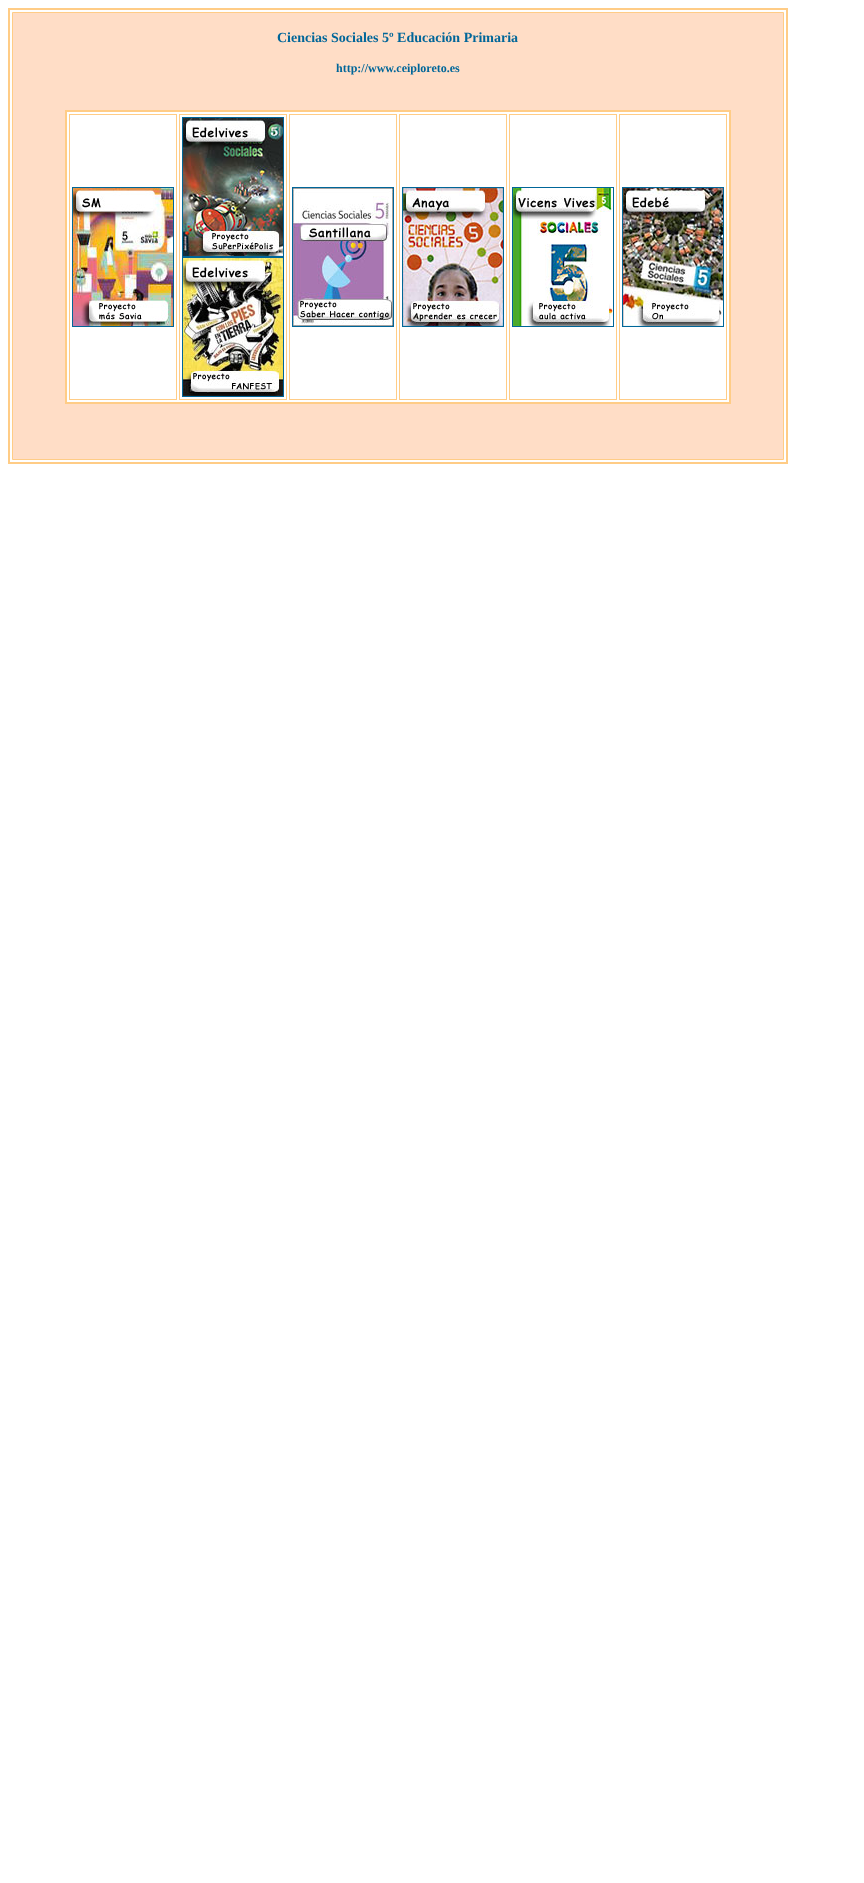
<!DOCTYPE html>
<meta charset="utf-8">
<style>body { margin: 0 } canvas { display: block }</style>
<canvas id="canvas" width="864" height="1883"></canvas>
<script type="module">
  const canvas = document.getElementById("canvas");
  const ctx = canvas.getContext("2d");
  ctx.miterLimit = 4;
  ctx.fontKerning = "normal";
  async function loadImage(src) {
    const img = new Image();
    img.src = src;
    await img.decode();
    return img;
  }

  ctx.fillStyle = "#ffffff";
  ctx.fillRect(0, 0, 864, 1883);
  ctx.strokeStyle = "#ffcc86";
  ctx.lineWidth = 2;
  ctx.strokeRect(9, 9, 778, 454);
  ctx.fillStyle = "#ffddc6";
  ctx.beginPath();
  ctx.rect(12.5, 12.5, 771, 447);
  ctx.fill();
  ctx.lineWidth = 1;
  ctx.stroke();
  ctx.font = "bold 14px Liberation Serif";
  ctx.fillStyle = "#006699";
  ctx.fillText("Ciencias Sociales 5º Educación Primaria", 277, 42);
  ctx.font = "bold 12px Liberation Serif";
  ctx.fillText("http://www.ceiploreto.es", 336, 72);
  ctx.fillStyle = "#ffffff";
  ctx.beginPath();
  ctx.rect(66, 111, 664, 292);
  ctx.fill();
  ctx.lineWidth = 2;
  ctx.stroke();
  ctx.lineWidth = 1;
  ctx.strokeRect(69.5, 114.5, 107, 285);
  ctx.strokeStyle = "#006699";
  ctx.strokeRect(72.5, 187.5, 101, 139);
  ctx.drawImage(await loadImage("img1.png"), 73, 188, 100, 138);
  ctx.strokeStyle = "#ffcc86";
  ctx.strokeRect(179.5, 114.5, 107, 285);
  ctx.strokeStyle = "#006699";
  ctx.strokeRect(182.5, 117.5, 101, 139);
  ctx.drawImage(await loadImage("img2.png"), 183, 118, 100, 138);
  ctx.strokeRect(182.5, 257.5, 101, 139);
  ctx.drawImage(await loadImage("img3.png"), 183, 258, 100, 138);
  ctx.strokeStyle = "#ffcc86";
  ctx.strokeRect(289.5, 114.5, 107, 285);
  ctx.strokeStyle = "#006699";
  ctx.strokeRect(292.5, 187.5, 101, 139);
  ctx.drawImage(await loadImage("img4.png"), 293, 188, 100, 138);
  ctx.strokeStyle = "#ffcc86";
  ctx.strokeRect(399.5, 114.5, 107, 285);
  ctx.strokeStyle = "#006699";
  ctx.strokeRect(402.5, 187.5, 101, 139);
  ctx.drawImage(await loadImage("img5.png"), 403, 188, 100, 138);
  ctx.strokeStyle = "#ffcc86";
  ctx.strokeRect(509.5, 114.5, 107, 285);
  ctx.strokeStyle = "#006699";
  ctx.strokeRect(512.5, 187.5, 101, 139);
  ctx.drawImage(await loadImage("img6.png"), 513, 188, 100, 138);
  ctx.strokeStyle = "#ffcc86";
  ctx.strokeRect(619.5, 114.5, 107, 285);
  ctx.strokeStyle = "#006699";
  ctx.strokeRect(622.5, 187.5, 101, 139);
  ctx.drawImage(await loadImage("img7.png"), 623, 188, 100, 138);
</script>
